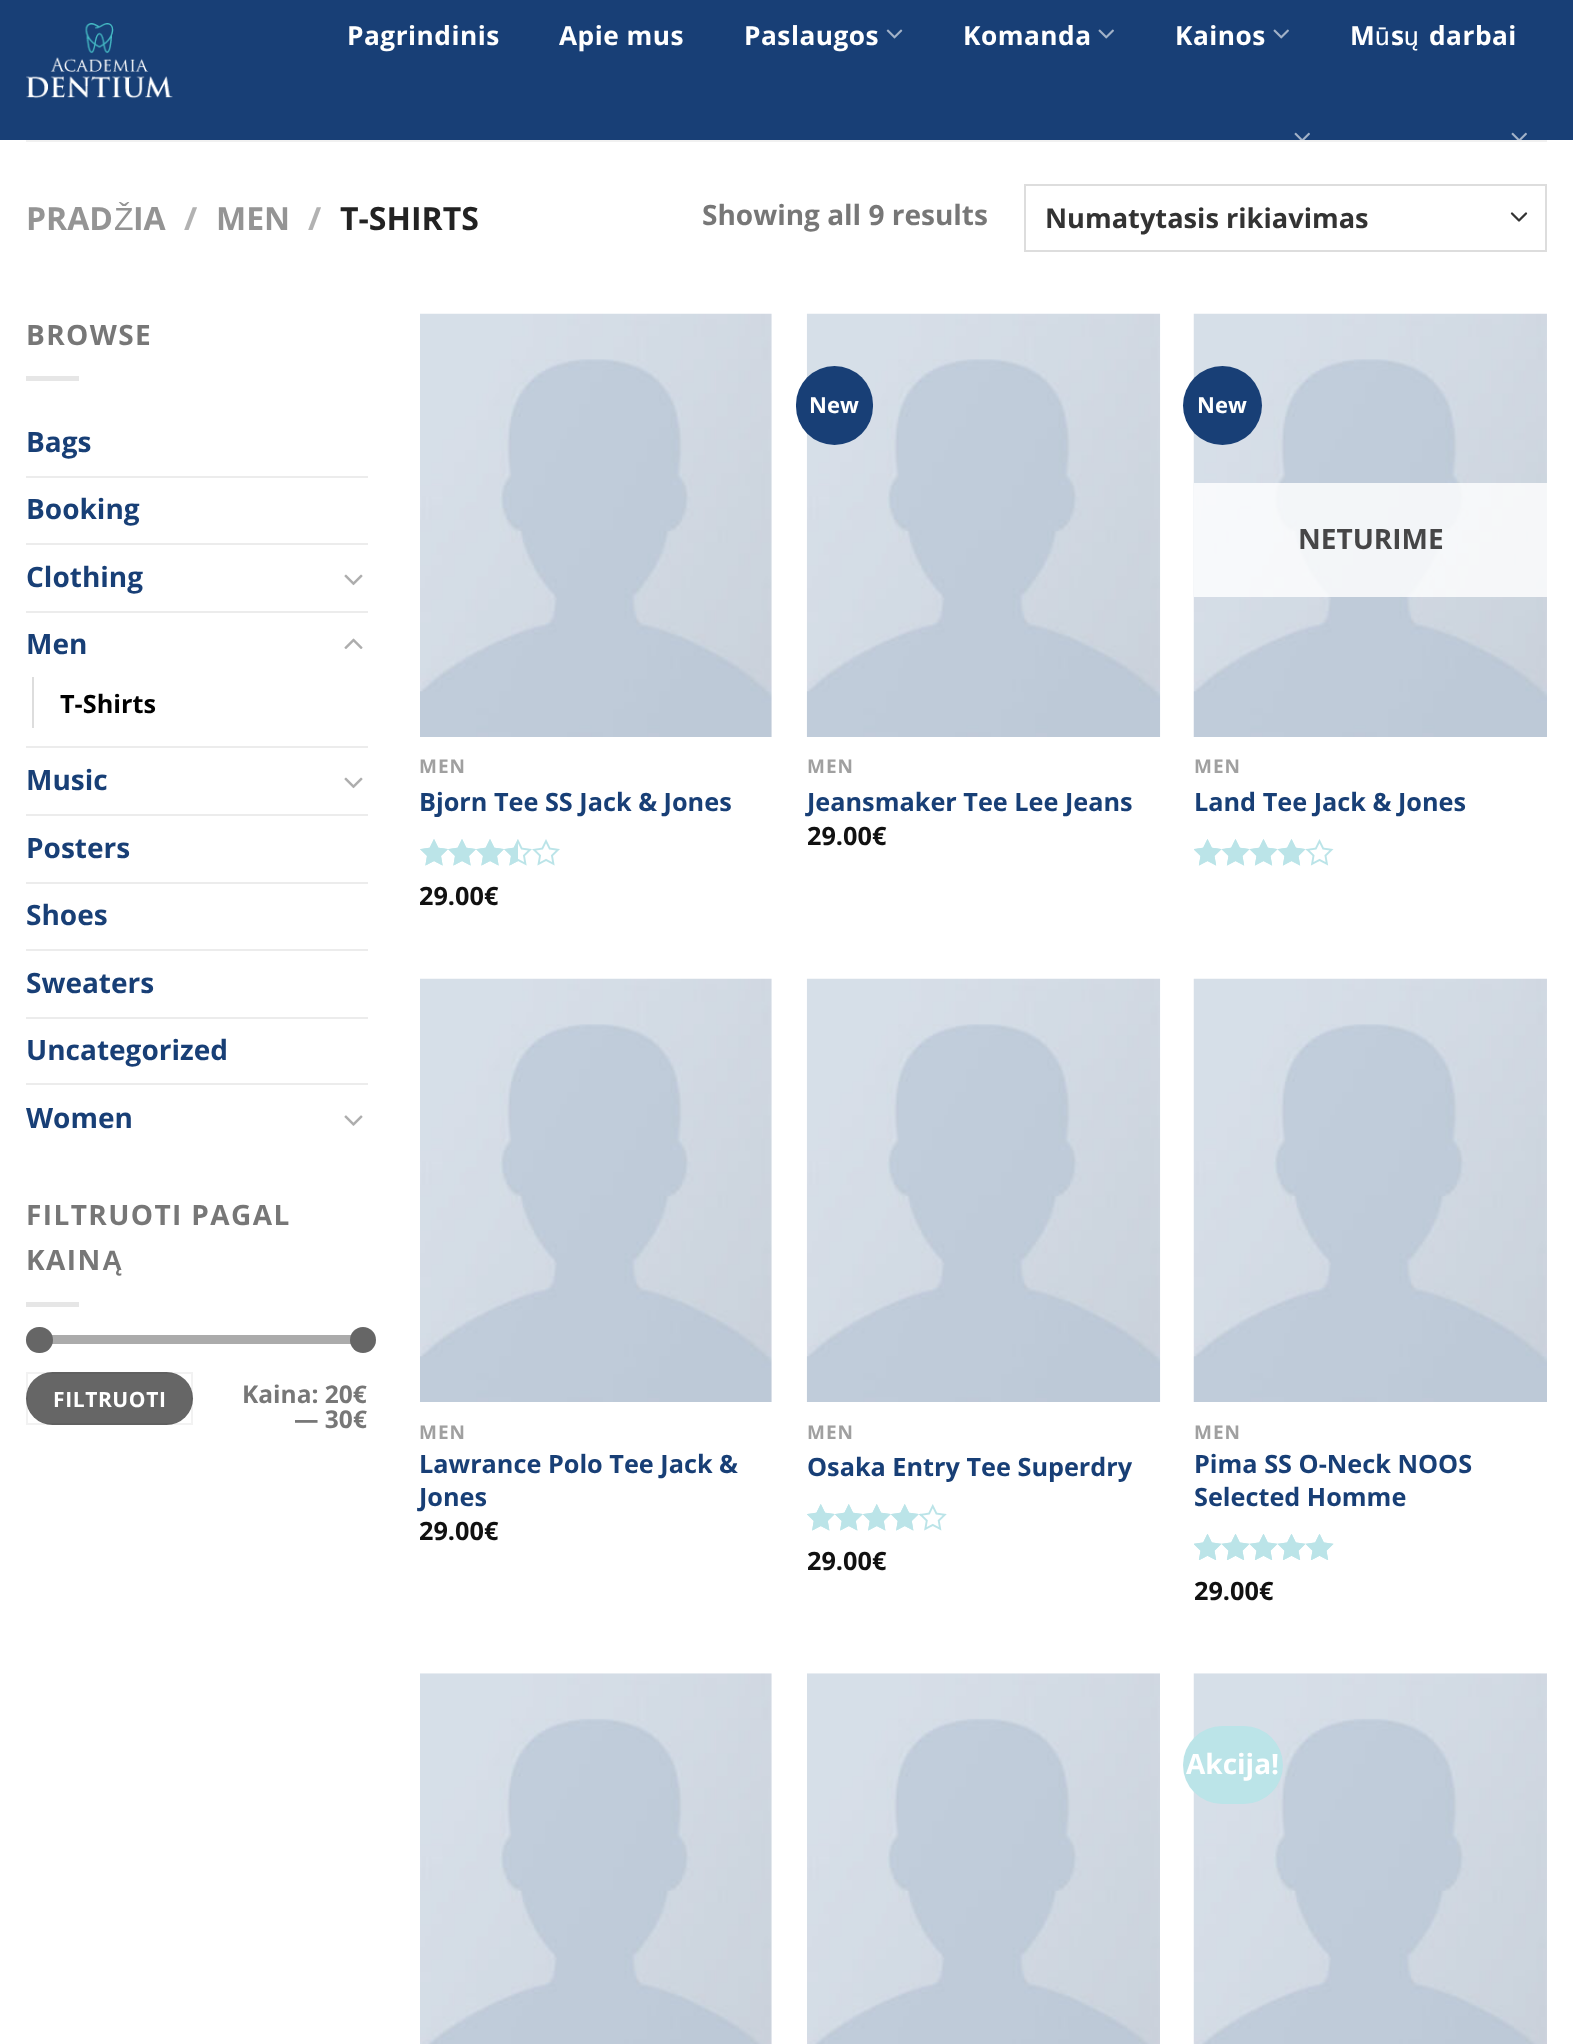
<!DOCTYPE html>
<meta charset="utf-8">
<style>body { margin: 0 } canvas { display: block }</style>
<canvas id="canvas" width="1573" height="2044"></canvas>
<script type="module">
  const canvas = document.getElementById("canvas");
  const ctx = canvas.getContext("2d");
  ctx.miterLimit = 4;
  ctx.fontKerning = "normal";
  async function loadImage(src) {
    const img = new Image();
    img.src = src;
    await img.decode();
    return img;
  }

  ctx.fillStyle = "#ffffff";
  ctx.fillRect(0, 0, 1573, 2044);
  ctx.fillStyle = "#183f76";
  ctx.fillRect(0, 0, 1573, 140);
  ctx.drawImage(await loadImage("img1.png"), 26, 23, 147, 76);
  ctx.letterSpacing = "0.5px";
  ctx.font = "bold 26.25px Open Sans";
  ctx.fillStyle = "#ffffff";
  ctx.fillText("Pagrindinis", 347, 45);
  ctx.fillText("Apie mus", 559, 45);
  ctx.fillText("Paslaugos", 744, 45);
  ctx.drawImage(await loadImage("img2.png"), 886, 29, 17, 10);
  ctx.fillText("Komanda", 963, 45);
  ctx.drawImage(await loadImage("img3.png"), 1098, 29, 16, 10);
  ctx.fillText("Kainos", 1175, 45);
  ctx.drawImage(await loadImage("img3.png"), 1273, 29, 16, 10);
  ctx.fillText("M", 1350, 45);
  ctx.font = "26.25px Liberation Sans";
  ctx.fillText("ū", 1375, 45);
  ctx.font = "bold 26.25px Open Sans";
  ctx.fillText("s", 1391, 45);
  ctx.font = "26.25px Liberation Sans";
  ctx.fillText("ų", 1404, 45);
  ctx.font = "bold 26.25px Open Sans";
  ctx.fillText("darbai", 1429, 45);
  ctx.drawImage(await loadImage("img4.png"), 1294, 132, 16, 8);
  ctx.drawImage(await loadImage("img4.png"), 1511, 132, 16, 8);
  ctx.fillStyle = "#f1f1f1";
  ctx.fillRect(26, 140, 1521, 2);
  ctx.letterSpacing = "0px";
  ctx.font = "bold 32px Open Sans";
  ctx.fillStyle = "#949494";
  ctx.fillText("PRAD", 26, 230);
  ctx.font = "32px Liberation Sans";
  ctx.fillText("Ž", 114, 230);
  ctx.font = "bold 32px Open Sans";
  ctx.fillText("IA", 133, 230);
  ctx.fillStyle = "#b2b2b2";
  ctx.fillText("/", 184, 230);
  ctx.fillStyle = "#949494";
  ctx.fillText("MEN", 216, 230);
  ctx.fillStyle = "#b2b2b2";
  ctx.fillText("/", 308, 230);
  ctx.fillStyle = "#222222";
  ctx.fillText("T-SHIRTS", 340, 230);
  ctx.font = "bold 28px Open Sans";
  ctx.fillStyle = "#777777";
  ctx.fillText("Showing all 9 results", 702, 225);
  ctx.beginPath();
  ctx.moveTo(1512, 213.5);
  ctx.lineTo(1519, 220.5);
  ctx.lineTo(1526, 213.5);
  ctx.strokeStyle = "#333333";
  ctx.lineWidth = 2.3;
  ctx.lineCap = "round";
  ctx.lineJoin = "round";
  ctx.stroke();
  ctx.strokeStyle = "#dddddd";
  ctx.lineWidth = 2;
  ctx.lineJoin = "miter";
  ctx.strokeRect(1025, 185, 521, 66);
  ctx.font = "bold 27.2px Open Sans";
  ctx.fillStyle = "#333333";
  ctx.fillText("Numatytasis rikiavimas", 1045, 228);
  ctx.letterSpacing = "1.4px";
  ctx.font = "bold 28px Open Sans";
  ctx.fillStyle = "#777777";
  ctx.fillText("BROWSE", 26, 345);
  ctx.fillStyle = "#e6e6e6";
  ctx.fillRect(26, 376, 53, 5);
  ctx.letterSpacing = "0px";
  ctx.fillStyle = "#183f76";
  ctx.fillText("Bags", 26, 452);
  ctx.fillStyle = "#ececec";
  ctx.fillRect(26, 476, 342, 2);
  ctx.fillStyle = "#183f76";
  ctx.fillText("Booking", 26, 519);
  ctx.fillStyle = "#ececec";
  ctx.fillRect(26, 543, 342, 2);
  ctx.fillStyle = "#183f76";
  ctx.fillText("Clothing", 26, 587);
  ctx.drawImage(await loadImage("img5.png"), 344, 574, 19, 12);
  ctx.fillStyle = "#ececec";
  ctx.fillRect(26, 611, 342, 2);
  ctx.fillStyle = "#183f76";
  ctx.fillText("Men", 26, 654);
  ctx.drawImage(await loadImage("img6.png"), 344, 638, 19, 11);
  ctx.fillStyle = "#dddddd";
  ctx.fillRect(32, 677, 2, 51);
  ctx.font = "bold 25.25px Open Sans";
  ctx.fillStyle = "#000000";
  ctx.fillText("T-Shirts", 60, 713);
  ctx.fillStyle = "#ececec";
  ctx.fillRect(26, 746, 342, 2);
  ctx.font = "bold 28px Open Sans";
  ctx.fillStyle = "#183f76";
  ctx.fillText("Music", 26, 790);
  ctx.drawImage(await loadImage("img5.png"), 344, 777, 19, 12);
  ctx.fillStyle = "#ececec";
  ctx.fillRect(26, 814, 342, 2);
  ctx.fillStyle = "#183f76";
  ctx.fillText("Posters", 26, 858);
  ctx.fillStyle = "#ececec";
  ctx.fillRect(26, 882, 342, 2);
  ctx.fillStyle = "#183f76";
  ctx.fillText("Shoes", 26, 925);
  ctx.fillStyle = "#ececec";
  ctx.fillRect(26, 949, 342, 2);
  ctx.fillStyle = "#183f76";
  ctx.fillText("Sweaters", 26, 993);
  ctx.fillStyle = "#ececec";
  ctx.fillRect(26, 1017, 342, 2);
  ctx.fillStyle = "#183f76";
  ctx.fillText("Uncategorized", 26, 1060);
  ctx.fillStyle = "#ececec";
  ctx.fillRect(26, 1083, 342, 2);
  ctx.fillStyle = "#183f76";
  ctx.fillText("Women", 26, 1128);
  ctx.drawImage(await loadImage("img7.png"), 344, 1115, 19, 11);
  ctx.letterSpacing = "1.4px";
  ctx.fillStyle = "#777777";
  ctx.fillText("FILTRUOTI PAGAL", 26, 1225);
  ctx.fillText("KAIN", 26, 1270);
  ctx.font = "bold 28px Liberation Sans";
  ctx.fillText("Ą", 102, 1270);
  ctx.fillStyle = "#e6e6e6";
  ctx.fillRect(26, 1302, 53, 5);
  ctx.fillStyle = "#f1f1f1";
  ctx.beginPath();
  ctx.roundRect(26, 1335, 342, 9, 4.5);
  ctx.fill();
  ctx.fillStyle = "rgba(102, 102, 102, 0.5)";
  ctx.beginPath();
  ctx.roundRect(26, 1335, 342, 9, 4.5);
  ctx.fill();
  ctx.fillStyle = "#666666";
  ctx.beginPath();
  ctx.roundRect(26, 1327, 27, 26, 13);
  ctx.fill();
  ctx.beginPath();
  ctx.arc(363, 1340, 13, 0, Math.PI * 2);
  ctx.fill();
  ctx.beginPath();
  ctx.roundRect(26, 1372, 167, 53, 26.5);
  ctx.fill();
  ctx.strokeStyle = "rgba(0, 0, 0, 0.05)";
  ctx.strokeRect(27, 1373, 165, 51);
  ctx.letterSpacing = "0.6px";
  ctx.font = "bold 21px Open Sans";
  ctx.fillStyle = "#ffffff";
  ctx.fillText("FILTRUOTI", 53, 1407);
  ctx.letterSpacing = "0px";
  ctx.font = "bold 24.5px Open Sans";
  ctx.fillStyle = "#777777";
  ctx.fillText("Kaina: 20€", 242, 1403);
  ctx.fillText("— 30€", 294, 1428);
  ctx.drawImage(await loadImage("img8.png"), 806, 313, 355, 424);
  ctx.fillStyle = "#183f76";
  ctx.beginPath();
  ctx.roundRect(796, 366, 77, 79, 38.5);
  ctx.fill();
  ctx.font = "bold 22px Open Sans";
  ctx.fillStyle = "#ffffff";
  ctx.fillText("New", 809, 413);
  ctx.letterSpacing = "1px";
  ctx.font = "bold 19px Open Sans";
  ctx.fillStyle = "#a0a0a0";
  ctx.fillText("MEN", 807, 773);
  ctx.letterSpacing = "0px";
  ctx.font = "bold 25.25px Open Sans";
  ctx.fillStyle = "#183f76";
  ctx.fillText("Jeansmaker Tee Lee Jeans", 807, 811);
  ctx.fillStyle = "#111111";
  ctx.fillText("29.00€", 807, 845);
  ctx.drawImage(await loadImage("img9.png"), 1193, 313, 354, 424);
  ctx.fillStyle = "#183f76";
  ctx.beginPath();
  ctx.arc(1222.5, 405.5, 39.5, 0, Math.PI * 2);
  ctx.fill();
  ctx.font = "bold 22px Open Sans";
  ctx.fillStyle = "#ffffff";
  ctx.fillText("New", 1197, 413);
  ctx.fillStyle = "rgba(255, 255, 255, 0.81)";
  ctx.fillRect(1194, 483, 353, 114);
  ctx.font = "bold 28px Open Sans";
  ctx.fillStyle = "#464647";
  ctx.fillText("NETURIME", 1298, 549);
  ctx.letterSpacing = "1px";
  ctx.font = "bold 19px Open Sans";
  ctx.fillStyle = "#a0a0a0";
  ctx.fillText("MEN", 1194, 773);
  ctx.letterSpacing = "0px";
  ctx.font = "bold 25.25px Open Sans";
  ctx.fillStyle = "#183f76";
  ctx.fillText("Land Tee Jack & Jones", 1194, 811);
  ctx.drawImage(await loadImage("img10.png"), 1194, 839, 140, 27);
  ctx.drawImage(await loadImage("img11.png"), 1194, 839, 113, 27);
  ctx.drawImage(await loadImage("img12.png"), 420, 313, 352, 424);
  ctx.letterSpacing = "1px";
  ctx.font = "bold 19px Open Sans";
  ctx.fillStyle = "#a0a0a0";
  ctx.fillText("MEN", 419, 773);
  ctx.letterSpacing = "0px";
  ctx.font = "bold 25.25px Open Sans";
  ctx.fillStyle = "#183f76";
  ctx.fillText("Bjorn Tee SS Jack & Jones", 419, 811);
  ctx.drawImage(await loadImage("img13.png"), 420, 839, 140, 27);
  ctx.drawImage(await loadImage("img14.png"), 420, 839, 98, 27);
  ctx.fillStyle = "#111111";
  ctx.fillText("29.00€", 419, 905);
  ctx.drawImage(await loadImage("img12.png"), 420, 978, 352, 424);
  ctx.letterSpacing = "1px";
  ctx.font = "bold 19px Open Sans";
  ctx.fillStyle = "#a0a0a0";
  ctx.fillText("MEN", 419, 1439);
  ctx.letterSpacing = "0px";
  ctx.font = "bold 25.25px Open Sans";
  ctx.fillStyle = "#183f76";
  ctx.fillText("Lawrance Polo Tee Jack &", 419, 1473);
  ctx.fillText("Jones", 419, 1506);
  ctx.fillStyle = "#111111";
  ctx.fillText("29.00€", 419, 1540);
  ctx.drawImage(await loadImage("img8.png"), 806, 978, 355, 424);
  ctx.letterSpacing = "1px";
  ctx.font = "bold 19px Open Sans";
  ctx.fillStyle = "#a0a0a0";
  ctx.fillText("MEN", 807, 1439);
  ctx.letterSpacing = "0px";
  ctx.font = "bold 25.25px Open Sans";
  ctx.fillStyle = "#183f76";
  ctx.fillText("Osaka Entry Tee Superdry", 807, 1476);
  ctx.drawImage(await loadImage("img15.png"), 807, 1504, 140, 27);
  ctx.drawImage(await loadImage("img16.png"), 807, 1504, 114, 27);
  ctx.fillStyle = "#111111";
  ctx.fillText("29.00€", 807, 1570);
  ctx.drawImage(await loadImage("img9.png"), 1193, 978, 354, 424);
  ctx.letterSpacing = "1px";
  ctx.font = "bold 19px Open Sans";
  ctx.fillStyle = "#a0a0a0";
  ctx.fillText("MEN", 1194, 1439);
  ctx.letterSpacing = "0px";
  ctx.font = "bold 25.25px Open Sans";
  ctx.fillStyle = "#183f76";
  ctx.fillText("Pima SS O-Neck NOOS", 1194, 1473);
  ctx.fillText("Selected Homme", 1194, 1506);
  ctx.drawImage(await loadImage("img17.png"), 1194, 1534, 140, 26);
  ctx.drawImage(await loadImage("img18.png"), 1194, 1534, 140, 26);
  ctx.fillStyle = "#111111";
  ctx.fillText("29.00€", 1194, 1600);
  ctx.drawImage(await loadImage("img19.png"), 420, 1673, 352, 371);
  ctx.drawImage(await loadImage("img20.png"), 807, 1673, 353, 371);
  ctx.drawImage(await loadImage("img21.png"), 1193, 1673, 354, 371);
  ctx.fillStyle = "#bbe4e8";
  ctx.beginPath();
  ctx.roundRect(1183, 1726, 100, 78, 39);
  ctx.fill();
  ctx.font = "bold 28px Open Sans";
  ctx.fillStyle = "#ffffff";
  ctx.fillText("Akcija!", 1186, 1774);
</script>
